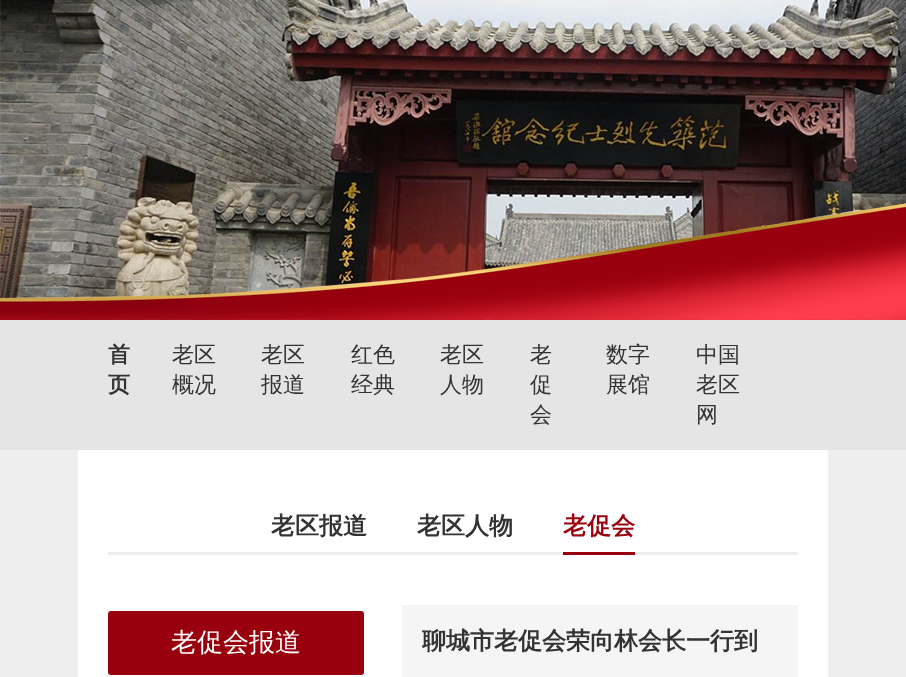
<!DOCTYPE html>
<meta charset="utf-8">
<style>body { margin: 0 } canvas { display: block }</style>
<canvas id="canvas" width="906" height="677"></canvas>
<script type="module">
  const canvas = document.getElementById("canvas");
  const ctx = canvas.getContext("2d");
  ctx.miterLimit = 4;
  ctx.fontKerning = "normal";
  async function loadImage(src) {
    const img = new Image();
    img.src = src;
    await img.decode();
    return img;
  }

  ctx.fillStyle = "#eeeeee";
  ctx.fillRect(0, 0, 906, 677);
  ctx.drawImage(await loadImage("img1.png"), 0, 0, 906, 320);
  ctx.fillStyle = "#e5e5e5";
  ctx.fillRect(0, 320, 906, 130);
  ctx.font = "bold 22px WenQuanYi Zen Hei";
  ctx.fillStyle = "#333333";
  ctx.fillText("首", 108, 362);
  ctx.fillText("页", 108, 392);
  ctx.font = "500 22px WenQuanYi Zen Hei";
  ctx.fillText("老区", 172, 362);
  ctx.fillText("概况", 172, 392);
  ctx.fillText("老区", 261, 362);
  ctx.fillText("报道", 261, 392);
  ctx.fillText("红色", 351, 362);
  ctx.fillText("经典", 351, 392);
  ctx.fillText("老区", 440, 362);
  ctx.fillText("人物", 440, 392);
  ctx.fillText("老", 530, 362);
  ctx.fillText("促", 530, 392);
  ctx.fillText("会", 530, 422);
  ctx.fillText("数字", 606, 362);
  ctx.fillText("展馆", 606, 392);
  ctx.fillText("中国", 696, 362);
  ctx.fillText("老区", 696, 392);
  ctx.fillText("网", 696, 422);
  ctx.fillStyle = "#ffffff";
  ctx.fillRect(78, 450, 750, 227);
  ctx.fillStyle = "#eeeeee";
  ctx.fillRect(108, 552, 690, 3);
  ctx.font = "bold 24px WenQuanYi Zen Hei";
  ctx.fillStyle = "#333333";
  ctx.fillText("老区报道", 271, 534);
  ctx.fillText("老区人物", 417, 534);
  ctx.fillStyle = "#99000d";
  ctx.fillRect(563, 552, 72, 3);
  ctx.fillText("老促会", 563, 534);
  ctx.beginPath();
  ctx.roundRect(108, 611, 256, 64, 3);
  ctx.fill();
  ctx.font = "500 26px WenQuanYi Zen Hei";
  ctx.fillStyle = "#ffffff";
  ctx.fillText("老促会报道", 171, 651);
  ctx.fillStyle = "#f5f5f5";
  ctx.fillRect(402, 605, 396, 72);
  ctx.font = "bold 24px WenQuanYi Zen Hei";
  ctx.fillStyle = "#333333";
  ctx.fillText("聊城市老促会荣向林会长一行到", 422, 649);
</script>
